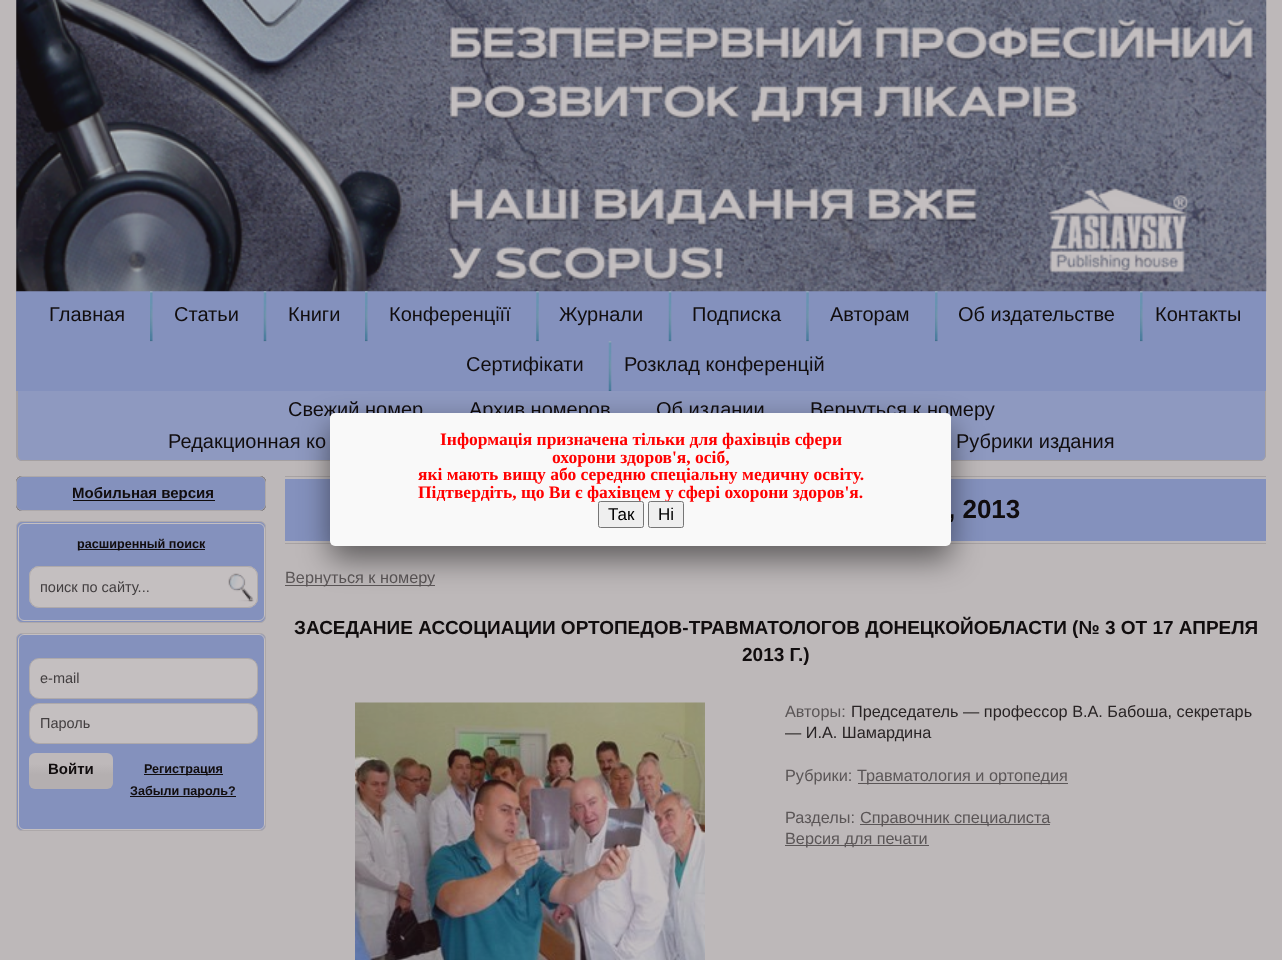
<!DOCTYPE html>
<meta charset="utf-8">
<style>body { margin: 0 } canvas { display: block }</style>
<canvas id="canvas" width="1282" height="960"></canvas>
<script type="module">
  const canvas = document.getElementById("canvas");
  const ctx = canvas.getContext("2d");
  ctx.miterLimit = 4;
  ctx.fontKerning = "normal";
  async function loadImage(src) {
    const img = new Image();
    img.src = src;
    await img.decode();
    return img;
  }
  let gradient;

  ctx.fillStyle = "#bdb8b9";
  ctx.fillRect(0, 0, 1282, 960);
  ctx.fillStyle = "#8491bd";
  ctx.fillRect(16, 291, 1250, 100);
  ctx.drawImage(await loadImage("img1.png"), 16, 0, 1251, 292);
  ctx.font = "20px Liberation Sans";
  ctx.fillStyle = "#110d0e";
  ctx.fillText("Главная", 49, 321);
  ctx.drawImage(await loadImage("img2.png"), 150, 291, 3, 51);
  ctx.fillText("Статьи", 174, 321);
  ctx.drawImage(await loadImage("img3.png"), 263, 291, 4, 51);
  ctx.fillText("Книги", 288, 321);
  ctx.drawImage(await loadImage("img4.png"), 365, 291, 3, 51);
  ctx.fillText("Конференціїї", 389, 321);
  ctx.drawImage(await loadImage("img5.png"), 536, 291, 3, 51);
  ctx.fillText("Журнали", 559, 321);
  ctx.drawImage(await loadImage("img6.png"), 668, 291, 4, 51);
  ctx.fillText("Подписка", 692, 321);
  ctx.drawImage(await loadImage("img7.png"), 806, 291, 3, 51);
  ctx.fillText("Авторам", 830, 321);
  ctx.drawImage(await loadImage("img8.png"), 935, 291, 3, 51);
  ctx.fillText("Об издательстве", 958, 321);
  ctx.drawImage(await loadImage("img9.png"), 1140, 291, 3, 51);
  ctx.fillText("Контакты", 1155, 321);
  ctx.fillText("Сертифікати", 466, 371);
  ctx.drawImage(await loadImage("img10.png"), 608, 341, 4, 50);
  ctx.fillText("Розклад конференцій", 624, 371);
  ctx.fillStyle = "#8e99c0";
  ctx.beginPath();
  ctx.roundRect(16, 391, 1250, 70, [0, 0, 6, 6]);
  ctx.fill();
  ctx.fillStyle = "#a5a0a1";
  ctx.beginPath();
  ctx.moveTo(16, 391);
  ctx.lineTo(1266, 391);
  ctx.lineTo(1266, 455);
  ctx.bezierCurveTo(1266, 458, 1263, 461, 1260, 461);
  ctx.lineTo(22, 461);
  ctx.bezierCurveTo(19, 461, 16, 458, 16, 455);
  ctx.closePath();
  ctx.moveTo(18, 391);
  ctx.lineTo(1265, 391);
  ctx.lineTo(1265, 455);
  ctx.bezierCurveTo(1265, 458, 1263, 460, 1260, 460);
  ctx.lineTo(22, 460);
  ctx.bezierCurveTo(20, 460, 18, 458, 18, 455);
  ctx.closePath();
  ctx.fill("evenodd");
  ctx.fillStyle = "#110d0e";
  ctx.fillText("Свежий номер", 288, 416);
  ctx.fillText("Архив номеров", 469, 416);
  ctx.fillText("Об издании", 656, 416);
  ctx.fillText("Вернуться к номеру", 810, 416);
  ctx.fillText("Редакционная ко", 168, 448);
  ctx.fillText("Рубрики издания", 956, 448);
  ctx.filter = "blur(0.5px)";
  ctx.beginPath();
  ctx.roundRect(16, 476, 250, 35, 6);
  ctx.fill();
  ctx.filter = "none";
  ctx.fillStyle = "#8491bd";
  ctx.beginPath();
  ctx.roundRect(16.5, 476.5, 249, 34, 5.5);
  ctx.fill();
  ctx.strokeStyle = "#ada8a9";
  ctx.stroke();
  ctx.fillStyle = "#110d0e";
  ctx.fillRect(73, 500, 142, 1);
  ctx.font = "bold 15px Liberation Sans";
  ctx.fillText("Мобильная версия", 72, 498);
  ctx.fillStyle = "#8491bd";
  ctx.beginPath();
  ctx.roundRect(16.5, 521.5, 249, 101, 5.5);
  ctx.fill();
  ctx.stroke();
  ctx.beginPath();
  ctx.roundRect(18.5, 523.5, 246, 97, 5.5);
  ctx.strokeStyle = "#c4bfc0";
  ctx.stroke();
  ctx.fillStyle = "#110d0e";
  ctx.fillRect(78, 549, 127, 1);
  ctx.font = "bold 12.6px Liberation Sans";
  ctx.fillText("расширенный поиск", 77, 548);
  ctx.fillStyle = "#c4bfc0";
  ctx.beginPath();
  ctx.roundRect(29, 566, 229, 42, 10);
  ctx.fill();
  ctx.drawImage(await loadImage("img11.png"), 228, 573, 26, 29);
  ctx.beginPath();
  ctx.roundRect(29.5, 566.5, 228, 41, 9.5);
  ctx.strokeStyle = "#aea9aa";
  ctx.stroke();
  ctx.font = "14.5px Liberation Sans";
  ctx.fillStyle = "#423e3f";
  ctx.fillText("поиск по сайту...", 40, 592);
  ctx.fillStyle = "#8491bd";
  ctx.beginPath();
  ctx.roundRect(16.5, 633.5, 249, 197, 5.5);
  ctx.fill();
  ctx.strokeStyle = "#ada8a9";
  ctx.stroke();
  ctx.beginPath();
  ctx.roundRect(18.5, 634.5, 246, 195, 5.5);
  ctx.strokeStyle = "#c4bfc0";
  ctx.stroke();
  ctx.fillStyle = "#c4bfc0";
  ctx.beginPath();
  ctx.roundRect(29.5, 658.5, 228, 40, 9.5);
  ctx.fill();
  ctx.strokeStyle = "#aea9aa";
  ctx.stroke();
  ctx.fillStyle = "#423e3f";
  ctx.fillText("e-mail", 40, 683);
  ctx.fillStyle = "#c4bfc0";
  ctx.beginPath();
  ctx.roundRect(29.5, 703.5, 228, 40, 9.5);
  ctx.fill();
  ctx.stroke();
  ctx.fillStyle = "#423e3f";
  ctx.fillText("Пароль", 40, 728);
  gradient = ctx.createLinearGradient(71, 753, 71, 789);
  gradient.addColorStop(0.3, "#beb9ba");
  gradient.addColorStop(0.6, "#b4afb0");
  ctx.fillStyle = gradient;
  ctx.beginPath();
  ctx.roundRect(29, 753, 84, 36, 6);
  ctx.fill();
  ctx.font = "bold 15px Liberation Sans";
  ctx.fillStyle = "#110d0e";
  ctx.fillText("Войти", 48, 774);
  ctx.fillRect(144, 774, 79, 1);
  ctx.font = "bold 12.6px Liberation Sans";
  ctx.fillText("Регистрация", 144, 773);
  ctx.fillRect(130, 796, 106, 1);
  ctx.fillText("Забыли пароль?", 130, 795);
  ctx.fillStyle = "#a7a2a3";
  ctx.fillRect(285, 476, 981, 1);
  ctx.fillRect(285, 543, 981, 1);
  ctx.fillStyle = "#8491bd";
  ctx.fillRect(285, 479, 981, 62);
  ctx.font = "bold 26px Liberation Sans";
  ctx.fillStyle = "#110d0e";
  ctx.fillText(", 2013", 948, 518);
  ctx.fillStyle = "#5b5657";
  ctx.fillRect(285, 585, 150, 1);
  ctx.font = "16.25px Liberation Sans";
  ctx.fillText("Вернуться к номеру", 285, 583);
  ctx.font = "bold 19px Liberation Sans";
  ctx.fillStyle = "#110d0e";
  ctx.fillText("ЗАСЕДАНИЕ АССОЦИАЦИИ ОРТОПЕДОВ-ТРАВМАТОЛОГОВ ДОНЕЦКОЙОБЛАСТИ (№ 3 ОТ 17 АПРЕЛЯ", 294, 634);
  ctx.fillText("2013 Г.)", 742, 661);
  ctx.drawImage(await loadImage("img12.png"), 355, 702, 350, 258);
  ctx.font = "16.25px Liberation Sans";
  ctx.fillStyle = "#5b5657";
  ctx.fillText("Авторы:", 785, 717);
  ctx.fillStyle = "#292425";
  ctx.fillText("Председатель — профессор В.А. Бабоша, секретарь", 851, 717);
  ctx.fillText("— И.А. Шамардина", 785, 738);
  ctx.fillStyle = "#5b5657";
  ctx.fillText("Рубрики:", 785, 781);
  ctx.fillRect(858, 783, 210, 1);
  ctx.fillText("Травматология и ортопедия", 857, 781);
  ctx.fillText("Разделы:", 785, 823);
  ctx.fillRect(860, 824, 190, 1);
  ctx.fillText("Справочник специалиста", 860, 823);
  ctx.fillRect(785, 845, 144, 1);
  ctx.fillText("Версия для печати", 785, 844);
  ctx.fillStyle = "rgba(0, 0, 0, 0.5)";
  ctx.filter = "blur(15.5px)";
  ctx.beginPath();
  ctx.roundRect(330, 425, 621, 134, 5);
  ctx.fill();
  ctx.filter = "none";
  ctx.fillStyle = "#f9f9f9";
  ctx.beginPath();
  ctx.roundRect(330, 413, 621, 133, 5);
  ctx.fill();
  ctx.font = "bold 17.5px Liberation Serif";
  ctx.fillStyle = "#ff0000";
  ctx.fillText("Інформація призначена тільки для фахівців сфери", 440, 445);
  ctx.fillText("охорони здоров'я, осіб,", 552, 463);
  ctx.fillText("які мають вищу або середню спеціальну медичну освіту.", 418, 480);
  ctx.fillText("Підтвердіть, що Ви є фахівцем у сфері охорони здоров'я.", 418, 498);
  ctx.fillStyle = "#efefef";
  ctx.beginPath();
  ctx.roundRect(598.5, 501.5, 45, 26, 2);
  ctx.fill();
  ctx.strokeStyle = "#767676";
  ctx.stroke();
  ctx.font = "17px Liberation Sans";
  ctx.fillStyle = "#000000";
  ctx.fillText("Так", 608, 520);
  ctx.fillStyle = "#efefef";
  ctx.beginPath();
  ctx.roundRect(648.5, 501.5, 35, 26, 2);
  ctx.fill();
  ctx.stroke();
  ctx.fillStyle = "#000000";
  ctx.fillText("Ні", 658, 520);
</script>
